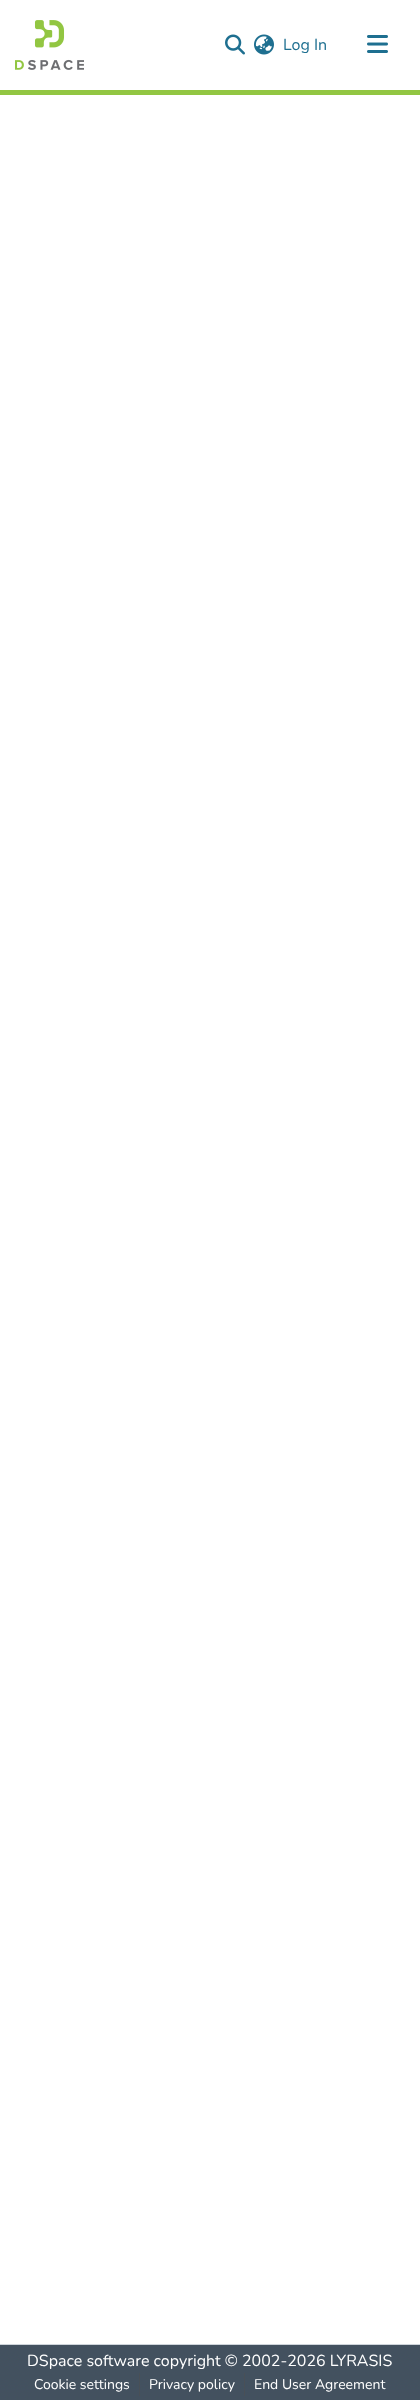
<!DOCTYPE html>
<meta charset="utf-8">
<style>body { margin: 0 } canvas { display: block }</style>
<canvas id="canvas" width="420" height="2400"></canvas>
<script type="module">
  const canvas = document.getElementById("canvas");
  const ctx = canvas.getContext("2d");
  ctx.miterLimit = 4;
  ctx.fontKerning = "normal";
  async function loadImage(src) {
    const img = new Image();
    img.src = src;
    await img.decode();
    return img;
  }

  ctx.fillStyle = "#ffffff";
  ctx.fillRect(0, 0, 420, 2400);
  ctx.fillStyle = "#92c642";
  ctx.fillRect(0, 90, 420, 5);
  ctx.drawImage(await loadImage("img1.png"), 15, 20, 69, 50);
  ctx.drawImage(await loadImage("img2.png"), 225, 34, 20, 21);
  ctx.drawImage(await loadImage("img3.png"), 254, 34, 20, 21);
  ctx.font = "16px Nunito";
  ctx.fillStyle = "#1e6f90";
  ctx.fillText("Log In", 283, 50);
  ctx.drawImage(await loadImage("img4.png"), 367, 35, 21, 18);
  ctx.fillStyle = "#43515f";
  ctx.fillRect(0, 2345, 420, 55);
  ctx.fillStyle = "#ced4da";
  ctx.fillRect(0, 2344, 420, 1);
  ctx.fillStyle = "#ffffff";
  ctx.fillText("DSpace software copyright © 2002-2026 LYRASIS", 27, 2366);
  ctx.font = "14px Nunito";
  ctx.fillText("Cookie settings", 34, 2389);
  ctx.fillStyle = "#495057";
  ctx.fillRect(139, 2373, 1, 23);
  ctx.fillStyle = "#ffffff";
  ctx.fillText("Privacy policy", 149, 2389);
  ctx.fillStyle = "#495057";
  ctx.fillRect(244, 2373, 1, 23);
  ctx.fillStyle = "#ffffff";
  ctx.fillText("End User Agreement", 254, 2389);
</script>
